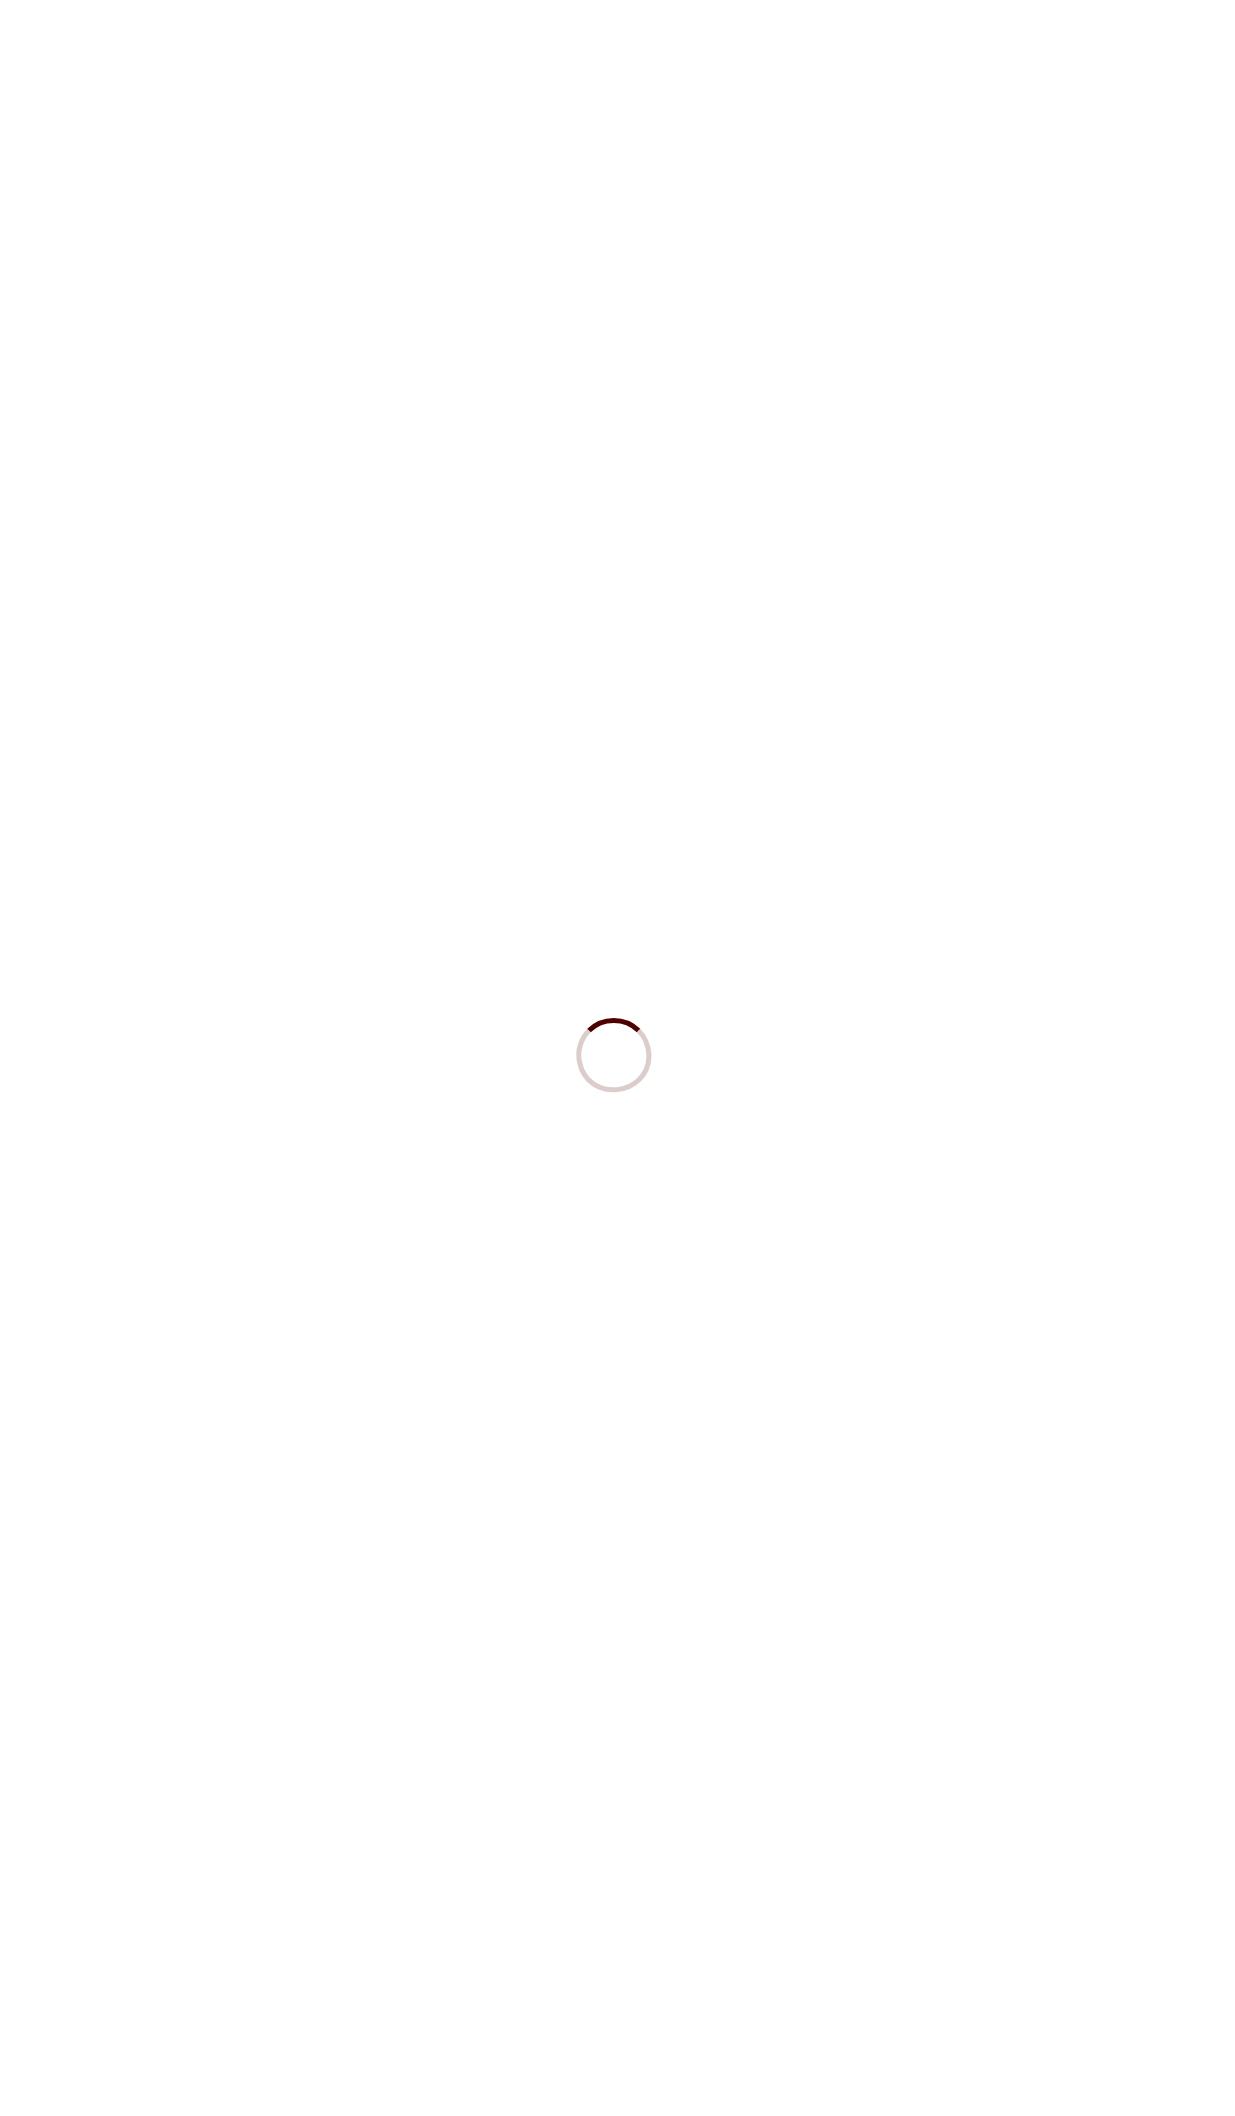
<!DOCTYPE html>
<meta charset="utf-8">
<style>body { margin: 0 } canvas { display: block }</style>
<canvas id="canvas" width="1235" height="2116"></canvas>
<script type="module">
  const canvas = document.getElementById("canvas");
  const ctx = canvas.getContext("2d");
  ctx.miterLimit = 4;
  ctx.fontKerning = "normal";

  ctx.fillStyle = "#ffffff";
  ctx.fillRect(0, 0, 1235, 2116);
  ctx.beginPath();
  ctx.moveTo(589, 1030.5);
  ctx.bezierCurveTo(602.5, 1017, 625, 1017, 638.5, 1030.5);
  ctx.strokeStyle = "#4e0200";
  ctx.lineWidth = 5;
  ctx.stroke();
  ctx.beginPath();
  ctx.moveTo(638.5, 1030.5);
  ctx.bezierCurveTo(645, 1037, 648.5, 1046, 649, 1055);
  ctx.bezierCurveTo(649, 1097, 587.5, 1103, 579.5, 1062);
  ctx.bezierCurveTo(577, 1050.5, 581, 1038.5, 589, 1030.5);
  ctx.strokeStyle = "rgba(78, 2, 0, 0.2)";
  ctx.stroke();
</script>
